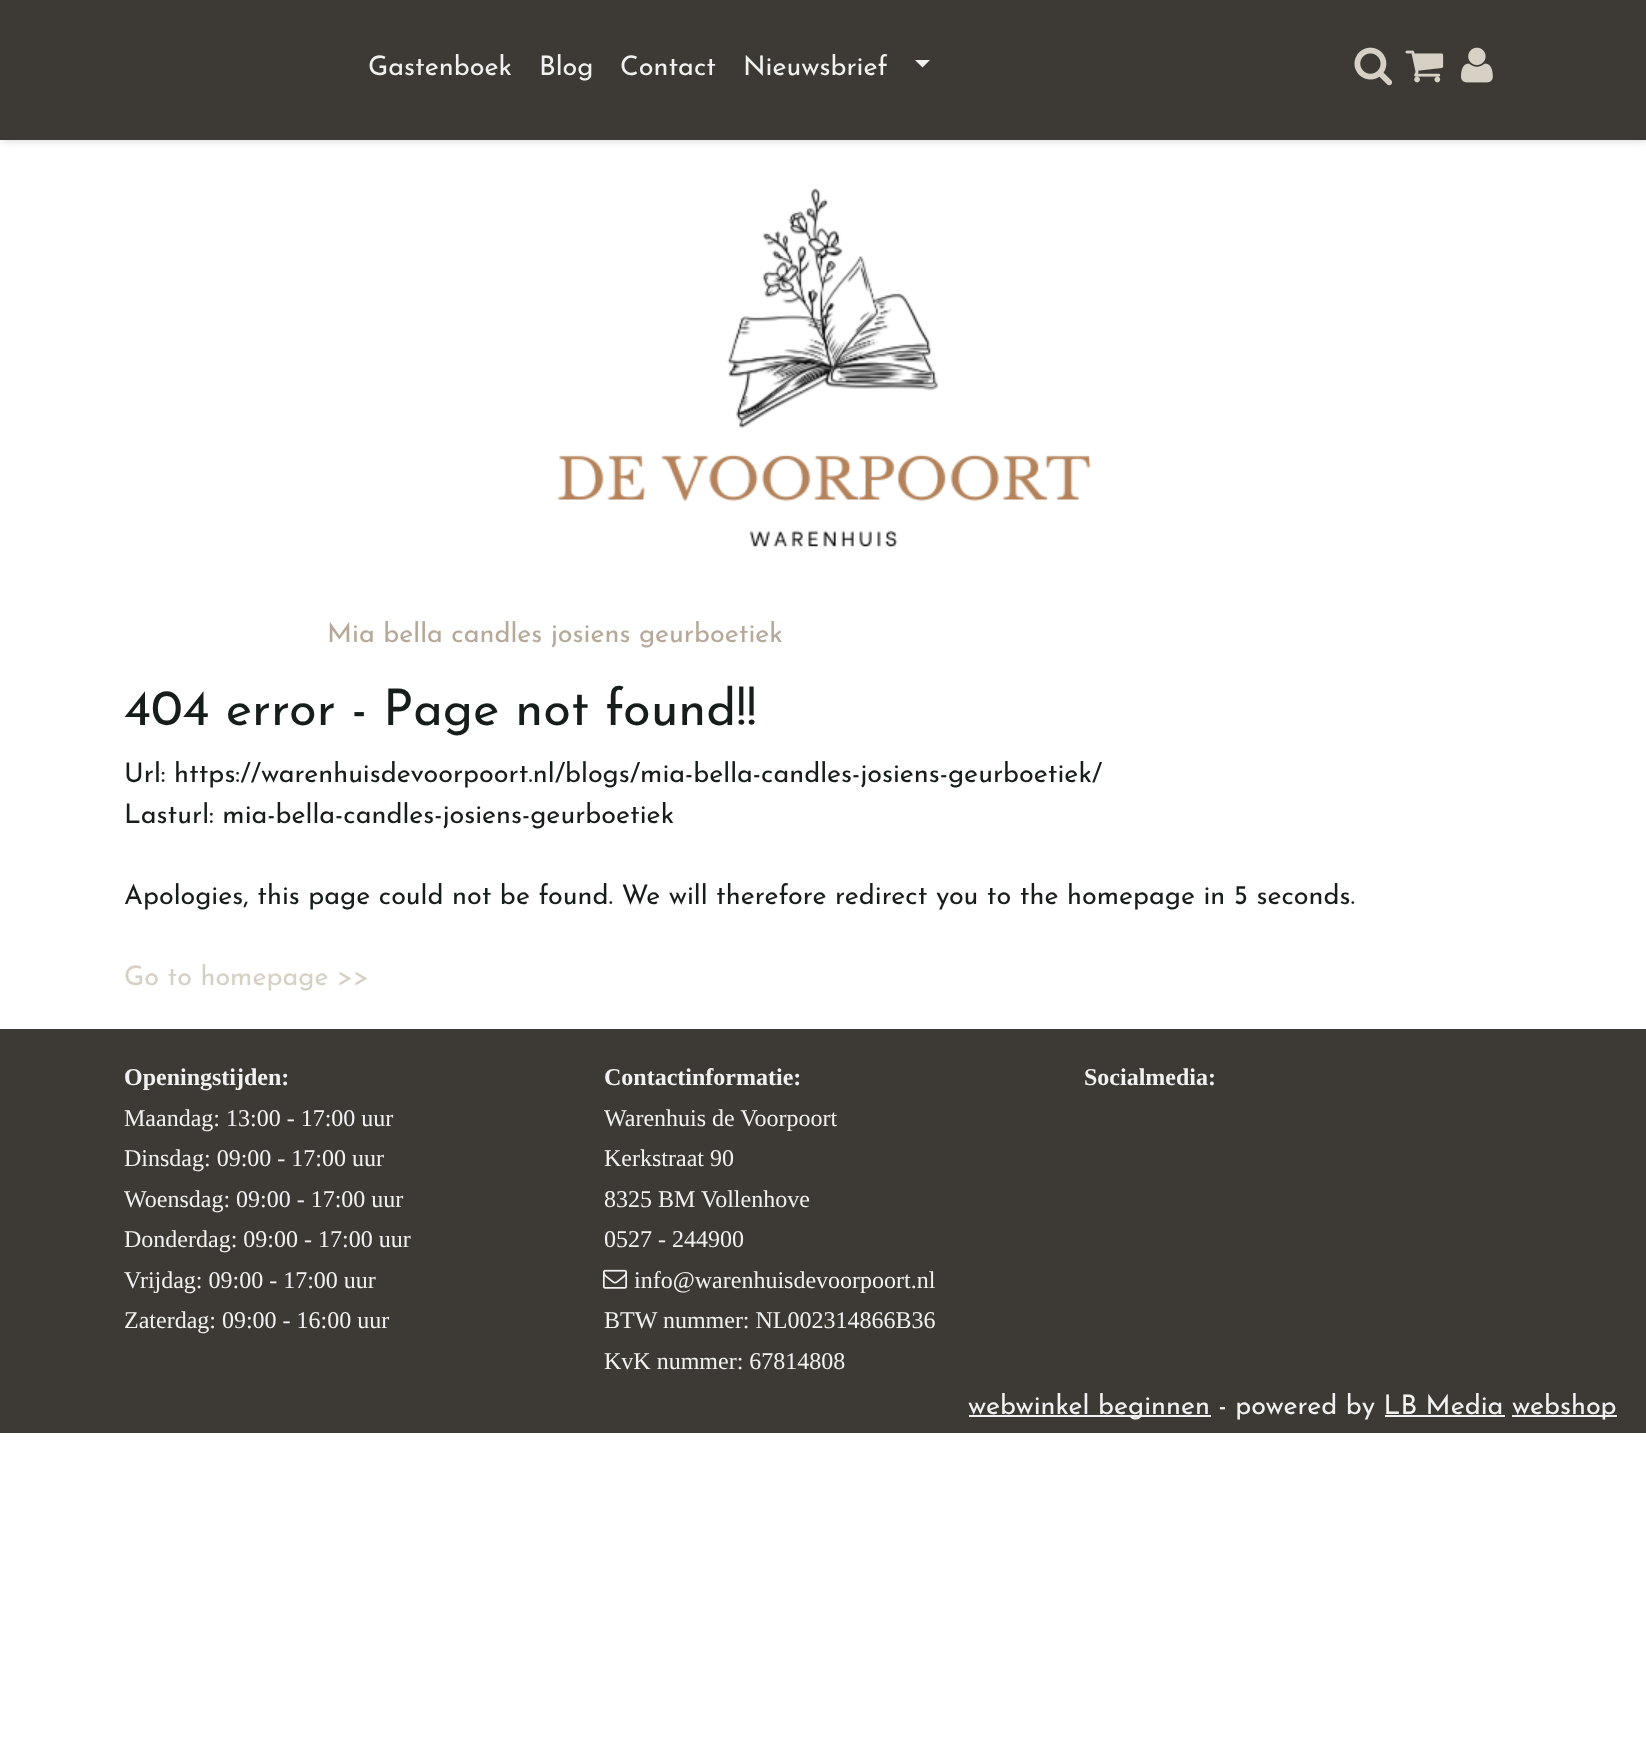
<!DOCTYPE html>
<meta charset="utf-8">
<style>body { margin: 0 } canvas { display: block }</style>
<canvas id="canvas" width="1646" height="1746"></canvas>
<script type="module">
  const canvas = document.getElementById("canvas");
  const ctx = canvas.getContext("2d");
  ctx.miterLimit = 4;
  ctx.fontKerning = "normal";
  async function loadImage(src) {
    const img = new Image();
    img.src = src;
    await img.decode();
    return img;
  }

  ctx.fillStyle = "#ffffff";
  ctx.fillRect(0, 0, 1646, 1746);
  ctx.fillStyle = "rgba(0, 0, 0, 0.06)";
  ctx.filter = "blur(3px)";
  ctx.beginPath();
  ctx.rect(2, 5, 1644, 136);
  ctx.fill();
  ctx.filter = "none";
  ctx.fillStyle = "rgba(0, 0, 0, 0.1)";
  ctx.filter = "blur(4.5px)";
  ctx.beginPath();
  ctx.rect(2, 5, 1644, 136);
  ctx.fill();
  ctx.filter = "none";
  ctx.fillStyle = "#3d3935";
  ctx.fillRect(0, 0, 1646, 140);
  ctx.font = "100 27px Josefin Sans";
  ctx.fillStyle = "#f1f1f1";
  ctx.fillText("Gastenboek", 368, 75);
  ctx.fillText("Blog", 539, 75);
  ctx.fillText("Contact", 620, 75);
  ctx.fillText("Nieuwsbrief", 743, 75);
  ctx.beginPath();
  ctx.moveTo(915, 60);
  ctx.lineTo(930, 60);
  ctx.lineTo(922.5, 67.5);
  ctx.closePath();
  ctx.fill();
  ctx.drawImage(await loadImage("img1.png"), 1354, 47, 39, 39);
  ctx.drawImage(await loadImage("img2.png"), 1405, 50, 39, 33);
  ctx.drawImage(await loadImage("img3.png"), 1461, 47, 32, 36);
  ctx.drawImage(await loadImage("img4.png"), 557, 188, 534, 360);
  ctx.fillStyle = "#b6a999";
  ctx.fillText("Mia bella candles josiens geurboetiek", 327, 642);
  ctx.font = "100 50.6px Josefin Sans";
  ctx.fillStyle = "#171d1a";
  ctx.fillText("404 error - Page not found!!", 124, 725);
  ctx.font = "100 27px Josefin Sans";
  ctx.fillText("Url: https://warenhuisdevoorpoort.nl/blogs/mia-bella-candles-josiens-geurboetiek/", 124, 782);
  ctx.fillText("Lasturl: mia-bella-candles-josiens-geurboetiek", 124, 823);
  ctx.fillText("Apologies, this page could not be found. We will therefore redirect you to the homepage in 5 seconds.", 124, 904);
  ctx.fillStyle = "#d6d1c4";
  ctx.fillText("Go to homepage >>", 124, 985);
  ctx.fillStyle = "#3d3935";
  ctx.fillRect(0, 1029, 1646, 404);
  ctx.font = "bold 24px Liberation Serif";
  ctx.fillStyle = "#f1f1f1";
  ctx.fillText("Openingstijden:", 124, 1085);
  ctx.font = "24px Liberation Serif";
  ctx.fillText("Maandag: 13:00 - 17:00 uur", 124, 1126);
  ctx.fillText("Dinsdag: 09:00 - 17:00 uur", 124, 1166);
  ctx.fillText("Woensdag: 09:00 - 17:00 uur", 124, 1207);
  ctx.fillText("Donderdag: 09:00 - 17:00 uur", 124, 1247);
  ctx.fillText("Vrijdag: 09:00 - 17:00 uur", 124, 1288);
  ctx.fillText("Zaterdag: 09:00 - 16:00 uur", 124, 1328);
  ctx.font = "bold 24px Liberation Serif";
  ctx.fillText("Contactinformatie:", 604, 1085);
  ctx.font = "24px Liberation Serif";
  ctx.fillText("Warenhuis de Voorpoort", 604, 1126);
  ctx.fillText("Kerkstraat 90", 604, 1166);
  ctx.fillText("8325 BM Vollenhove", 604, 1207);
  ctx.fillText("0527 - 244900", 604, 1247);
  ctx.drawImage(await loadImage("img5.png"), 603, 1269, 24, 20);
  ctx.fillText("info@warenhuisdevoorpoort.nl", 634, 1288);
  ctx.fillText("BTW nummer: NL002314866B36", 604, 1328);
  ctx.fillText("KvK nummer: 67814808", 604, 1369);
  ctx.font = "bold 24px Liberation Serif";
  ctx.fillText("Socialmedia:", 1084, 1085);
  ctx.fillRect(969, 1415, 242, 2);
  ctx.font = "100 27px Josefin Sans";
  ctx.fillText("webwinkel beginnen - powered by LB Media", 968, 1414);
  ctx.fillRect(1512, 1415, 105, 2);
  ctx.fillText("webshop", 1512, 1414);
  ctx.fillRect(1385, 1415, 120, 2);
</script>
